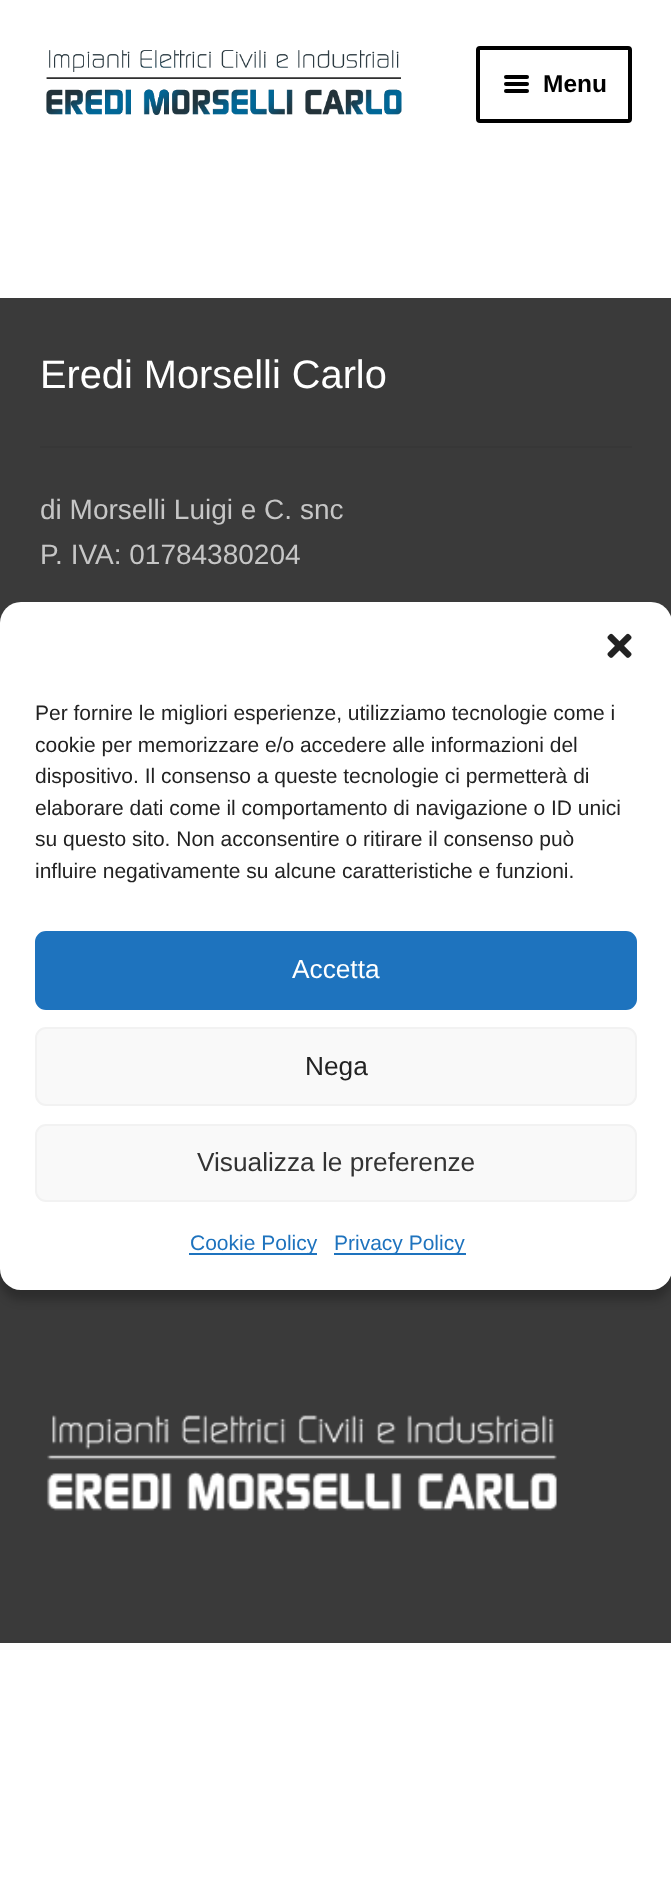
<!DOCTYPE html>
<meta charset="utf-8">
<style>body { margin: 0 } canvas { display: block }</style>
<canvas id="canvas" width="671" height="1891"></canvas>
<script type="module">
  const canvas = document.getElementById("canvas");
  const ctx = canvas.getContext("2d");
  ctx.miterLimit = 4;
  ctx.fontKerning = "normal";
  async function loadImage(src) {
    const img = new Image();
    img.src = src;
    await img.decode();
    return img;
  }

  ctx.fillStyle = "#ffffff";
  ctx.fillRect(0, 0, 671, 1891);
  ctx.drawImage(await loadImage("img1.png"), 46, 50, 356, 65);
  ctx.beginPath();
  ctx.roundRect(478, 48, 152, 73, 2);
  ctx.strokeStyle = "#000000";
  ctx.lineWidth = 4;
  ctx.stroke();
  ctx.fillStyle = "#000000";
  ctx.beginPath();
  ctx.roundRect(504, 75, 25, 4, 2);
  ctx.fill();
  ctx.beginPath();
  ctx.roundRect(504, 82, 25, 4, 2);
  ctx.fill();
  ctx.font = "bold 24.5px Liberation Sans";
  ctx.fillText("Menu", 543, 92);
  ctx.beginPath();
  ctx.roundRect(504, 89, 25, 4, 2);
  ctx.fill();
  ctx.fillStyle = "#3a3a3a";
  ctx.fillRect(0, 298, 671, 1345);
  ctx.fillStyle = "#373737";
  ctx.fillRect(40, 446, 592, 2);
  ctx.font = "39.75px Liberation Sans";
  ctx.fillStyle = "#ffffff";
  ctx.fillText("Eredi Morselli Carlo", 40, 388);
  ctx.font = "28px Liberation Sans";
  ctx.fillStyle = "#c6c6c6";
  ctx.fillText("di Morselli Luigi e C. snc", 40, 519);
  ctx.fillText("P. IVA: 01784380204", 40, 564);
  ctx.drawImage(await loadImage("img2.png"), 46, 1415, 511, 96);
  ctx.fillStyle = "rgba(0, 0, 0, 0.23)";
  ctx.filter = "blur(5px)";
  ctx.beginPath();
  ctx.roundRect(0, 613, 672, 687, 21);
  ctx.fill();
  ctx.filter = "none";
  ctx.fillStyle = "#ffffff";
  ctx.beginPath();
  ctx.roundRect(0, 602, 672, 688, 21);
  ctx.fill();
  ctx.drawImage(await loadImage("img3.png"), 607, 633, 25, 25);
  ctx.font = "21px Liberation Sans";
  ctx.fillStyle = "#222222";
  ctx.fillText("Per fornire le migliori esperienze, utilizziamo tecnologie come i", 35, 720);
  ctx.fillText("cookie per memorizzare e/o accedere alle informazioni del", 35, 752);
  ctx.fillText("dispositivo. Il consenso a queste tecnologie ci permetterà di", 35, 783);
  ctx.fillText("elaborare dati come il comportamento di navigazione o ID unici", 35, 815);
  ctx.fillText("su questo sito. Non acconsentire o ritirare il consenso può", 35, 846);
  ctx.fillText("influire negativamente su alcune caratteristiche e funzioni.", 35, 878);
  ctx.fillStyle = "#1e73be";
  ctx.beginPath();
  ctx.roundRect(36, 932, 600, 77, 10);
  ctx.fill();
  ctx.strokeStyle = "#1e73be";
  ctx.lineWidth = 2;
  ctx.stroke();
  ctx.font = "26.25px Liberation Sans";
  ctx.fillStyle = "#ffffff";
  ctx.fillText("Accetta", 292, 978);
  ctx.fillStyle = "#f9f9f9";
  ctx.beginPath();
  ctx.roundRect(36, 1028, 600, 77, 10);
  ctx.fill();
  ctx.strokeStyle = "#f2f2f2";
  ctx.stroke();
  ctx.fillStyle = "#222222";
  ctx.fillText("Nega", 305, 1075);
  ctx.fillStyle = "#f9f9f9";
  ctx.beginPath();
  ctx.roundRect(36, 1125, 600, 76, 10);
  ctx.fill();
  ctx.stroke();
  ctx.fillStyle = "#333333";
  ctx.fillText("Visualizza le preferenze", 197, 1171);
  ctx.fillStyle = "#1e73be";
  ctx.fillRect(189, 1253, 128, 2);
  ctx.font = "21px Liberation Sans";
  ctx.fillText("Cookie Policy", 190, 1250);
  ctx.fillRect(334, 1253, 132, 2);
  ctx.fillText("Privacy Policy", 334, 1250);
</script>
